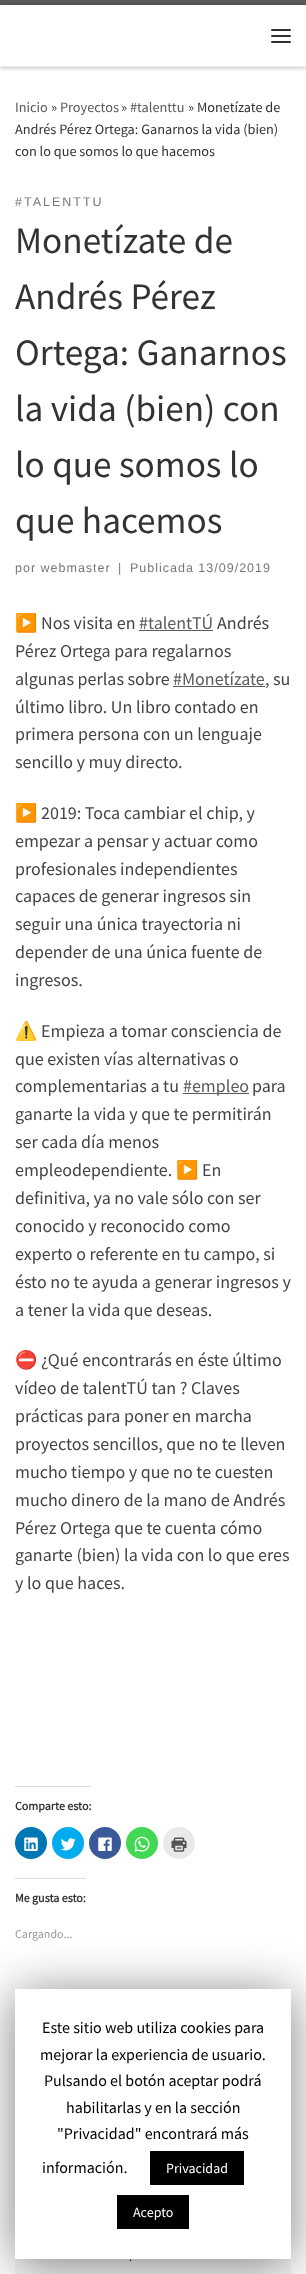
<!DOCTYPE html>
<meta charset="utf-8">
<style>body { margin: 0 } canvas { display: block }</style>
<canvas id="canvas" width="306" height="2274"></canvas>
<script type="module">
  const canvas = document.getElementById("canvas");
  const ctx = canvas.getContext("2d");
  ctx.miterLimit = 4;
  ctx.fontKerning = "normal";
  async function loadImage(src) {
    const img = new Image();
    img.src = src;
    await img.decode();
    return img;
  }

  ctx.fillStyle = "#ffffff";
  ctx.fillRect(0, 0, 306, 2274);
  ctx.save();
  ctx.beginPath();
  ctx.rect(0, 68, 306, 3);
  ctx.clip();
  ctx.fillStyle = "rgba(102, 102, 102, 0.08)";
  ctx.filter = "blur(1px)";
  ctx.beginPath();
  ctx.rect(0, 2, 306, 68);
  ctx.fill();
  ctx.filter = "none";
  ctx.restore();
  ctx.fillStyle = "#5a5a5a";
  ctx.fillRect(0, 0, 306, 5);
  ctx.fillStyle = "#efefef";
  ctx.fillRect(0, 67, 306, 1);
  ctx.save();
  ctx.beginPath();
  ctx.moveTo(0, 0);
  ctx.lineTo(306, 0);
  ctx.lineTo(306, 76);
  ctx.lineTo(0, 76);
  ctx.closePath();
  ctx.moveTo(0, 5);
  ctx.lineTo(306, 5);
  ctx.lineTo(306, 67);
  ctx.lineTo(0, 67);
  ctx.closePath();
  ctx.clip("evenodd");
  ctx.fillStyle = "rgba(0, 0, 0, 0.2)";
  ctx.filter = "blur(2.5px)";
  ctx.beginPath();
  ctx.rect(0, 5, 306, 62);
  ctx.fill();
  ctx.filter = "none";
  ctx.restore();
  ctx.fillStyle = "#313131";
  ctx.beginPath();
  ctx.roundRect(271, 29, 20, 2, 1);
  ctx.fill();
  ctx.beginPath();
  ctx.roundRect(271, 35, 20, 2, 1);
  ctx.fill();
  ctx.beginPath();
  ctx.roundRect(271, 41, 20, 2, 1);
  ctx.fill();
  ctx.fillStyle = "#f0f0f0";
  ctx.fillRect(0, 66, 306, 1);
  ctx.font = "14.25px Source Sans Pro";
  ctx.fillStyle = "#5a5a5a";
  ctx.fillText("Inicio", 15, 112);
  ctx.fillStyle = "#333333";
  ctx.fillText("»", 51, 112);
  ctx.fillStyle = "#5a5a5a";
  ctx.fillText("Proyectos", 60, 112);
  ctx.fillStyle = "#333333";
  ctx.fillText("»", 121, 112);
  ctx.fillStyle = "#5a5a5a";
  ctx.fillText("#talenttu", 130, 112);
  ctx.fillStyle = "#333333";
  ctx.fillText("» Monetízate de", 188, 112);
  ctx.fillText("Andrés Pérez Ortega: Ganarnos la vida (bien)", 15, 134);
  ctx.fillText("con lo que somos lo que hacemos", 15, 156);
  ctx.letterSpacing = "2px";
  ctx.font = "12.5px Liberation Sans";
  ctx.fillStyle = "#777777";
  ctx.fillText("#TALENTTU", 15, 206);
  ctx.letterSpacing = "0px";
  ctx.font = "37.25px Source Sans Pro";
  ctx.fillStyle = "#333333";
  ctx.fillText("Monetízate de", 15, 253);
  ctx.fillText("Andrés Pérez", 15, 309);
  ctx.fillText("Ortega: Ganarnos", 15, 365);
  ctx.fillText("la vida (bien) con", 15, 421);
  ctx.fillText("lo que somos lo", 15, 477);
  ctx.fillText("que hacemos", 15, 533);
  ctx.letterSpacing = "1px";
  ctx.font = "12.5px Liberation Sans";
  ctx.fillStyle = "#777777";
  ctx.fillText("por webmaster", 15, 572);
  ctx.fillText("|", 118, 572);
  ctx.fillText("Publicada 13/09/2019", 130, 572);
  ctx.letterSpacing = "0px";
  ctx.font = "18px Noto Color Emoji";
  ctx.fillStyle = "#444444";
  ctx.fillText("▶️", 15, 629);
  ctx.font = "18px Source Sans Pro";
  ctx.fillText("Nos visita en", 41, 629);
  ctx.fillStyle = "#5a5a5a";
  ctx.fillText("#talentTÚ", 139, 629);
  ctx.fillRect(139, 630, 74, 1);
  ctx.fillStyle = "#444444";
  ctx.fillText("Andrés", 217, 629);
  ctx.fillText("Pérez Ortega para regalarnos", 15, 657);
  ctx.fillText("algunas perlas sobre", 15, 685);
  ctx.fillStyle = "#5a5a5a";
  ctx.fillText("#Monetízate", 173, 685);
  ctx.fillRect(173, 686, 92, 1);
  ctx.fillStyle = "#444444";
  ctx.fillText(", su", 265, 685);
  ctx.fillText("último libro. Un libro contado en", 15, 713);
  ctx.fillText("primera persona con un lenguaje", 15, 740);
  ctx.fillText("sencillo y muy directo.", 15, 768);
  ctx.font = "18px Noto Color Emoji";
  ctx.fillText("▶️", 15, 819);
  ctx.font = "18px Source Sans Pro";
  ctx.fillText("2019: Toca cambiar el chip, y", 41, 819);
  ctx.fillText("empezar a pensar y actuar como", 15, 847);
  ctx.fillText("profesionales independientes", 15, 875);
  ctx.fillText("capaces de generar ingresos sin", 15, 902);
  ctx.fillText("seguir una única trayectoria ni", 15, 930);
  ctx.fillText("depender de una única fuente de", 15, 958);
  ctx.fillText("ingresos.", 15, 986);
  ctx.font = "18px Noto Color Emoji";
  ctx.fillText("⚠️", 15, 1037);
  ctx.font = "18px Source Sans Pro";
  ctx.fillText("Empieza a tomar consciencia de", 41, 1037);
  ctx.fillText("que existen vías alternativas o", 15, 1065);
  ctx.fillText("complementarias a tu", 15, 1092);
  ctx.fillStyle = "#5a5a5a";
  ctx.fillRect(183, 1093, 66, 1);
  ctx.fillText("#empleo", 183, 1092);
  ctx.fillStyle = "#444444";
  ctx.fillText("para", 252, 1092);
  ctx.fillText("ganarte la vida y que te permitirán", 15, 1120);
  ctx.fillText("ser cada día menos", 15, 1148);
  ctx.fillText("empleodependiente.", 15, 1176);
  ctx.font = "18px Noto Color Emoji";
  ctx.fillText("▶️", 176, 1176);
  ctx.font = "18px Source Sans Pro";
  ctx.fillText("En", 202, 1176);
  ctx.fillText("definitiva, ya no vale sólo con ser", 15, 1204);
  ctx.fillText("conocido y reconocido como", 15, 1232);
  ctx.fillText("experto o referente en tu campo, si", 15, 1260);
  ctx.fillText("ésto no te ayuda a generar ingresos y", 15, 1288);
  ctx.fillText("a tener la vida que deseas.", 15, 1316);
  ctx.font = "18px Noto Color Emoji";
  ctx.fillText("⛔", 15, 1366);
  ctx.font = "18px Source Sans Pro";
  ctx.fillText("¿Qué encontrarás en éste último", 41, 1366);
  ctx.fillText("vídeo de talentTÚ tan ? Claves", 15, 1394);
  ctx.fillText("prácticas para poner en marcha", 15, 1422);
  ctx.fillText("proyectos sencillos, que no te lleven", 15, 1450);
  ctx.fillText("mucho tiempo y que no te cuesten", 15, 1478);
  ctx.fillText("mucho dinero de la mano de Andrés", 15, 1506);
  ctx.fillText("Pérez Ortega que te cuenta cómo", 15, 1534);
  ctx.fillText("ganarte (bien) la vida con lo que eres", 15, 1561);
  ctx.fillText("y lo que haces.", 15, 1589);
  ctx.fillStyle = "#dddddd";
  ctx.fillRect(15, 1786, 76, 1);
  ctx.font = "bold 12px Source Sans Pro";
  ctx.fillStyle = "#333333";
  ctx.fillText("Comparte esto:", 15, 1810);
  ctx.fillStyle = "#0077b5";
  ctx.beginPath();
  ctx.arc(31, 1843, 16, 0, Math.PI * 2);
  ctx.fill();
  ctx.drawImage(await loadImage("img1.png"), 24, 1837, 14, 14);
  ctx.fillStyle = "#00acee";
  ctx.beginPath();
  ctx.arc(68, 1843, 16, 0, Math.PI * 2);
  ctx.fill();
  ctx.drawImage(await loadImage("img2.png"), 60, 1838, 16, 13);
  ctx.fillStyle = "#3b5998";
  ctx.beginPath();
  ctx.arc(105, 1843, 16, 0, Math.PI * 2);
  ctx.fill();
  ctx.drawImage(await loadImage("img3.png"), 98, 1837, 14, 14);
  ctx.fillStyle = "#43d854";
  ctx.beginPath();
  ctx.arc(142, 1843, 16, 0, Math.PI * 2);
  ctx.fill();
  ctx.drawImage(await loadImage("img4.png"), 134, 1836, 16, 16);
  ctx.fillStyle = "#e9e9e9";
  ctx.beginPath();
  ctx.arc(179, 1843, 16, 0, Math.PI * 2);
  ctx.fill();
  ctx.drawImage(await loadImage("img5.png"), 171, 1837, 16, 15);
  ctx.fillStyle = "#dddddd";
  ctx.fillRect(15, 1878, 71, 1);
  ctx.fillStyle = "#333333";
  ctx.fillText("Me gusta esto:", 15, 1902);
  ctx.font = "12px Source Sans Pro";
  ctx.fillStyle = "#999999";
  ctx.fillText("Cargando...", 15, 1938);
  ctx.fillStyle = "#f7f8f9";
  ctx.fillRect(15, 2259, 276, 15);
  ctx.font = "12.5px Source Sans Pro";
  ctx.fillStyle = "#333333";
  ctx.fillText(".", 129, 2261);
  ctx.fillStyle = "rgba(0, 0, 0, 0.5)";
  ctx.filter = "blur(25px)";
  ctx.beginPath();
  ctx.rect(15, 1994, 276, 270);
  ctx.fill();
  ctx.filter = "none";
  ctx.fillStyle = "#ffffff";
  ctx.fillRect(15, 1989, 276, 270);
  ctx.font = "16px Source Sans Pro";
  ctx.fillStyle = "#000000";
  ctx.fillText("Este sitio web utiliza cookies para", 42, 2033);
  ctx.fillText("mejorar la experiencia de usuario.", 40, 2060);
  ctx.fillText("Pulsando el botón aceptar podrá", 44, 2086);
  ctx.fillText("habilitarlas y en la sección", 66, 2113);
  ctx.fillText("\"Privacidad\" encontrará más", 57, 2139);
  ctx.fillText("información.", 42, 2173);
  ctx.fillRect(150, 2151, 94, 34);
  ctx.font = "14px Source Sans Pro";
  ctx.fillStyle = "#ffffff";
  ctx.fillText("Privacidad", 166, 2173);
  ctx.fillStyle = "#000000";
  ctx.fillRect(117, 2195, 72, 34);
  ctx.fillStyle = "#ffffff";
  ctx.fillText("Acepto", 133, 2217);
</script>
